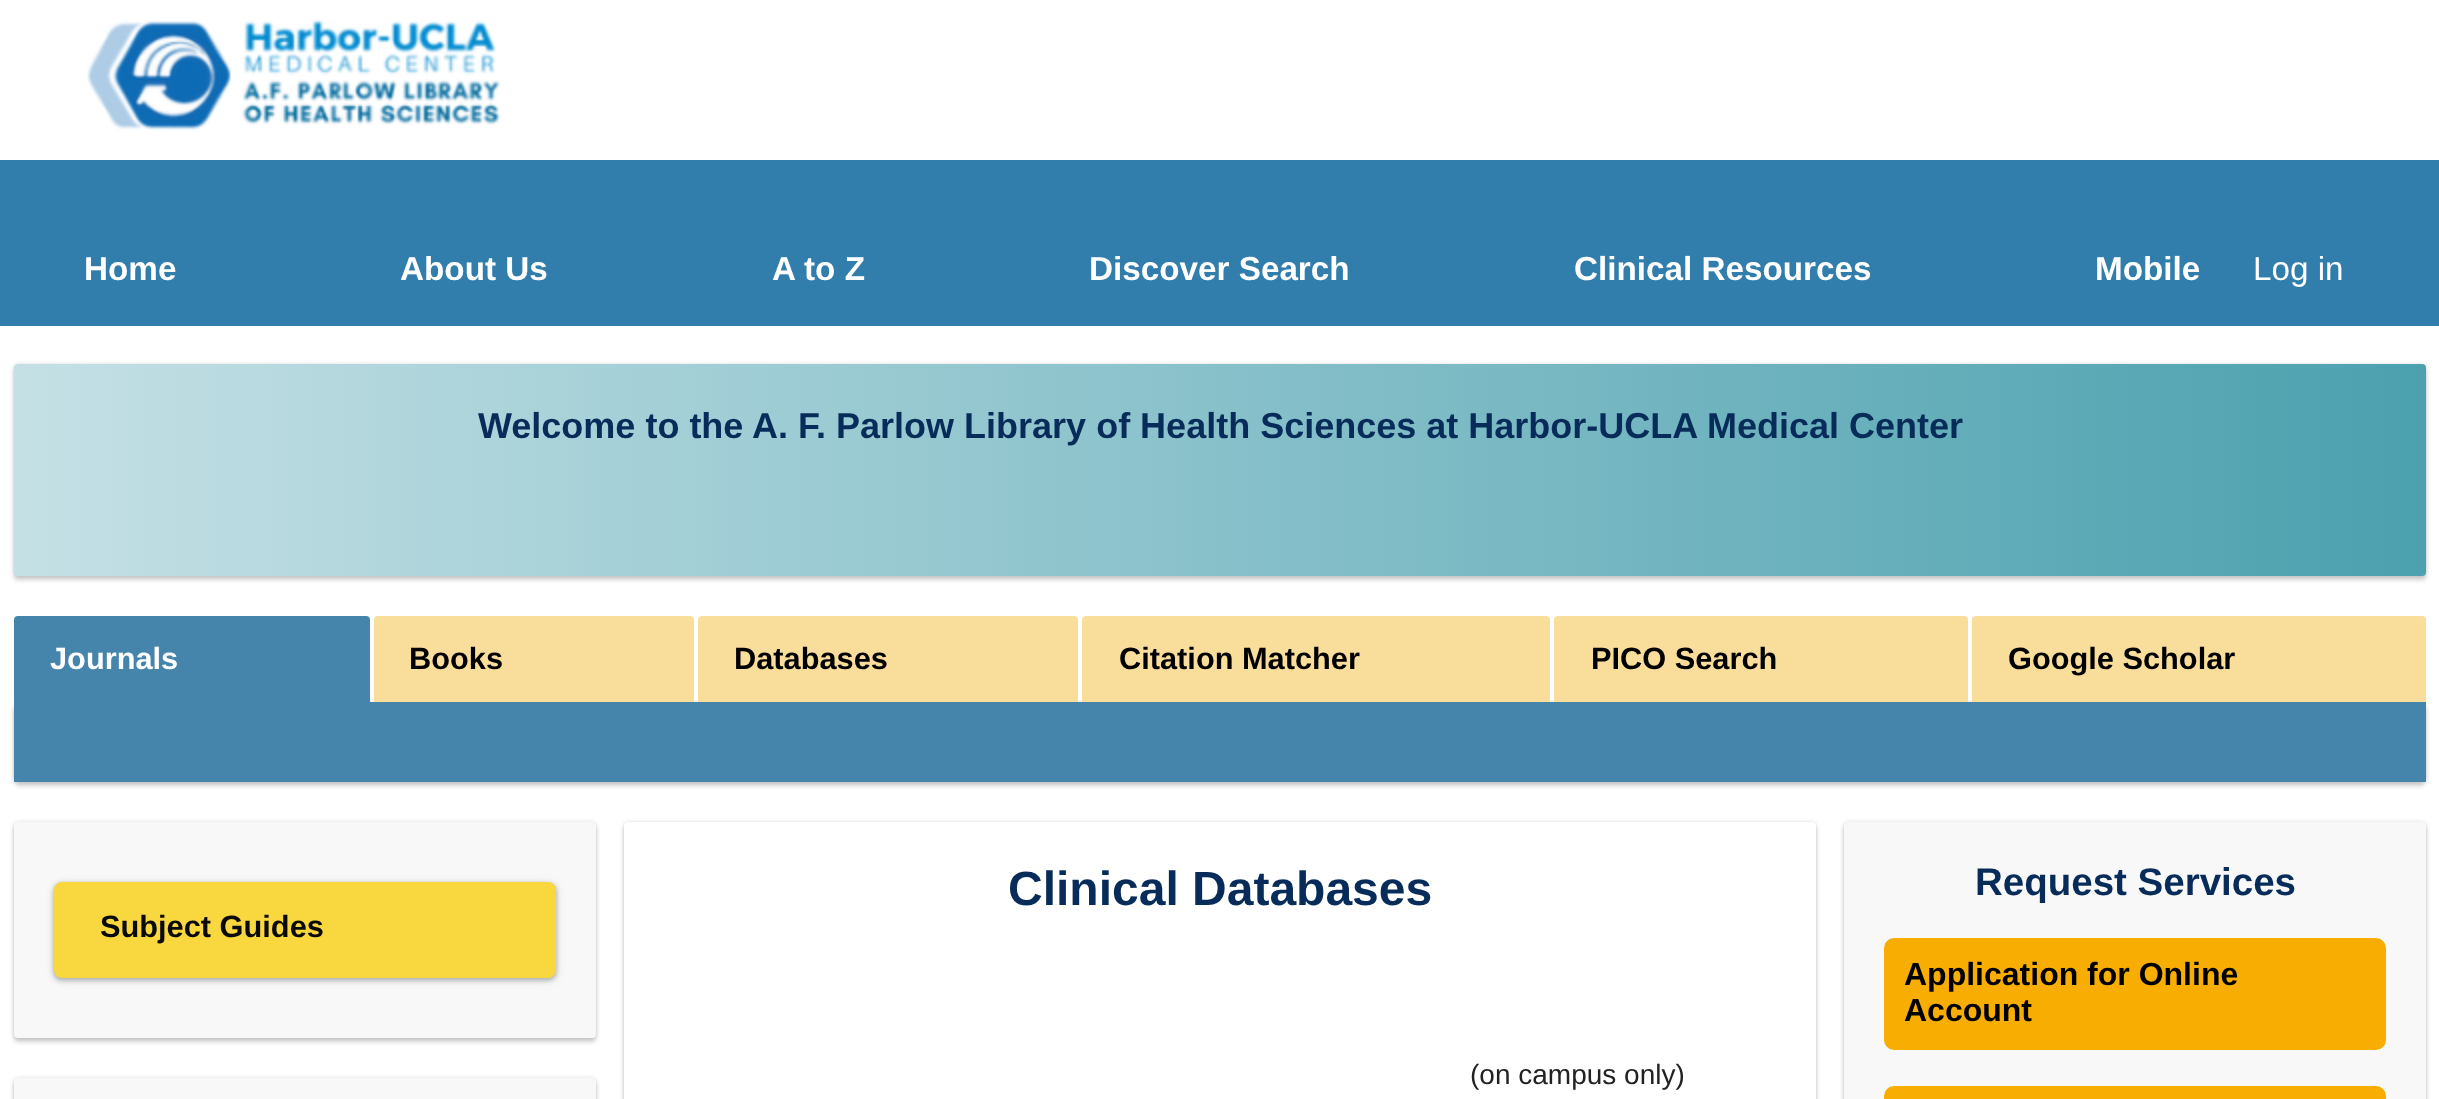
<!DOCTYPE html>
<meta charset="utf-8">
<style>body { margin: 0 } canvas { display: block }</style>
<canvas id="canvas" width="2439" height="1099"></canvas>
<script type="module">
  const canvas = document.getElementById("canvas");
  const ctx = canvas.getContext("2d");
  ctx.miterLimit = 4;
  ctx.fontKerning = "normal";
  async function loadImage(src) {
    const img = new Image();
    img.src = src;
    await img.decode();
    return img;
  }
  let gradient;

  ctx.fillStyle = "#ffffff";
  ctx.fillRect(0, 0, 2439, 1099);
  ctx.drawImage(await loadImage("img1.png"), 87, 19, 414, 112);
  ctx.fillStyle = "#317eac";
  ctx.fillRect(0, 160, 2439, 166);
  ctx.font = "bold 33.25px Liberation Sans";
  ctx.fillStyle = "#ffffff";
  ctx.fillText("Home", 84, 280);
  ctx.fillText("About Us", 400, 280);
  ctx.fillText("A to Z", 772, 280);
  ctx.fillText("Discover Search", 1089, 280);
  ctx.fillText("Clinical Resources", 1574, 280);
  ctx.fillText("Mobile", 2095, 280);
  ctx.font = "33.25px Liberation Sans";
  ctx.fillText("Log in", 2253, 280);
  ctx.fillStyle = "rgba(0, 0, 0, 0.18)";
  ctx.filter = "blur(2px)";
  ctx.beginPath();
  ctx.roundRect(14, 368, 2412, 212, 4);
  ctx.fill();
  ctx.filter = "none";
  ctx.fillStyle = "rgba(0, 0, 0, 0.12)";
  ctx.filter = "blur(2px)";
  ctx.beginPath();
  ctx.roundRect(14, 364, 2412, 212, 4);
  ctx.fill();
  ctx.filter = "none";
  gradient = ctx.createLinearGradient(2426, 470, 14, 470);
  gradient.addColorStop(0, "#4ca1af");
  gradient.addColorStop(1, "#c4e0e5");
  ctx.fillStyle = gradient;
  ctx.beginPath();
  ctx.roundRect(14, 364, 2412, 212, 4);
  ctx.fill();
  ctx.font = "bold 36px Liberation Sans";
  ctx.fillStyle = "#082c5a";
  ctx.fillText("Welcome to the A. F. Parlow Library of Health Sciences at Harbor-UCLA Medical Center", 478, 438);
  ctx.fillStyle = "rgba(0, 0, 0, 0.18)";
  ctx.filter = "blur(2px)";
  ctx.beginPath();
  ctx.roundRect(14, 706, 2412, 80, 6);
  ctx.fill();
  ctx.filter = "none";
  ctx.fillStyle = "rgba(0, 0, 0, 0.12)";
  ctx.filter = "blur(2px)";
  ctx.beginPath();
  ctx.roundRect(14, 702, 2412, 80, 6);
  ctx.fill();
  ctx.filter = "none";
  ctx.fillStyle = "#4585ac";
  ctx.beginPath();
  ctx.roundRect(14, 616, 356, 86, [4, 4, 0, 0]);
  ctx.fill();
  ctx.font = "bold 30.75px Liberation Sans";
  ctx.fillStyle = "#ffffff";
  ctx.fillText("Journals", 50, 669);
  ctx.fillStyle = "#f9dd9b";
  ctx.beginPath();
  ctx.roundRect(374, 616, 320, 86, [4, 4, 0, 0]);
  ctx.fill();
  ctx.fillStyle = "#000000";
  ctx.fillText("Books", 409, 669);
  ctx.fillStyle = "#f9dd9b";
  ctx.beginPath();
  ctx.roundRect(698, 616, 380, 86, [4, 4, 0, 0]);
  ctx.fill();
  ctx.fillStyle = "#000000";
  ctx.fillText("Databases", 734, 669);
  ctx.fillStyle = "#f9dd9b";
  ctx.beginPath();
  ctx.roundRect(1082, 616, 468, 86, [4, 4, 0, 0]);
  ctx.fill();
  ctx.fillStyle = "#000000";
  ctx.fillText("Citation Matcher", 1119, 669);
  ctx.fillStyle = "#f9dd9b";
  ctx.beginPath();
  ctx.roundRect(1554, 616, 414, 86, [4, 4, 0, 0]);
  ctx.fill();
  ctx.fillStyle = "#000000";
  ctx.fillText("PICO Search", 1591, 669);
  ctx.fillStyle = "#f9dd9b";
  ctx.beginPath();
  ctx.roundRect(1972, 616, 454, 86, [4, 4, 0, 0]);
  ctx.fill();
  ctx.fillStyle = "#000000";
  ctx.fillText("Google Scholar", 2008, 669);
  ctx.fillStyle = "#4585ac";
  ctx.fillRect(14, 702, 2412, 80);
  ctx.fillStyle = "rgba(0, 0, 0, 0.18)";
  ctx.filter = "blur(2px)";
  ctx.beginPath();
  ctx.roundRect(14, 826, 582, 216, 4);
  ctx.fill();
  ctx.filter = "none";
  ctx.fillStyle = "rgba(0, 0, 0, 0.12)";
  ctx.filter = "blur(2px)";
  ctx.beginPath();
  ctx.roundRect(14, 822, 582, 216, 4);
  ctx.fill();
  ctx.filter = "none";
  ctx.fillStyle = "#f8f8f8";
  ctx.beginPath();
  ctx.roundRect(14, 822, 582, 216, 4);
  ctx.fill();
  ctx.fillStyle = "rgba(60, 64, 67, 0.15)";
  ctx.filter = "blur(3px)";
  ctx.beginPath();
  ctx.roundRect(52, 882, 506, 100, 10);
  ctx.fill();
  ctx.filter = "none";
  ctx.fillStyle = "rgba(60, 64, 67, 0.3)";
  ctx.filter = "blur(2px)";
  ctx.beginPath();
  ctx.roundRect(54, 884, 502, 96, 8);
  ctx.fill();
  ctx.filter = "none";
  ctx.fillStyle = "#f9d73e";
  ctx.beginPath();
  ctx.roundRect(54, 882, 502, 96, 8);
  ctx.fill();
  ctx.fillStyle = "#0a0a0a";
  ctx.fillText("Subject Guides", 100, 937);
  ctx.fillStyle = "rgba(0, 0, 0, 0.18)";
  ctx.filter = "blur(2px)";
  ctx.beginPath();
  ctx.roundRect(14, 1082, 582, 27, 4);
  ctx.fill();
  ctx.filter = "none";
  ctx.fillStyle = "rgba(0, 0, 0, 0.12)";
  ctx.filter = "blur(2px)";
  ctx.beginPath();
  ctx.roundRect(14, 1078, 582, 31, 4);
  ctx.fill();
  ctx.filter = "none";
  ctx.fillStyle = "#f8f8f8";
  ctx.beginPath();
  ctx.roundRect(14, 1078, 582, 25, 4);
  ctx.fill();
  ctx.fillStyle = "rgba(0, 0, 0, 0.18)";
  ctx.filter = "blur(2px)";
  ctx.beginPath();
  ctx.roundRect(624, 826, 1192, 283, 4);
  ctx.fill();
  ctx.filter = "none";
  ctx.fillStyle = "rgba(0, 0, 0, 0.12)";
  ctx.filter = "blur(2px)";
  ctx.beginPath();
  ctx.roundRect(624, 822, 1192, 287, 4);
  ctx.fill();
  ctx.filter = "none";
  ctx.fillStyle = "#ffffff";
  ctx.beginPath();
  ctx.roundRect(624, 822, 1192, 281, 4);
  ctx.fill();
  ctx.font = "bold 48px Liberation Sans";
  ctx.fillStyle = "#082c5a";
  ctx.fillText("Clinical Databases", 1008, 905);
  ctx.font = "28px Liberation Sans";
  ctx.fillStyle = "#222222";
  ctx.fillText("(on campus only)", 1470, 1084);
  ctx.fillStyle = "rgba(0, 0, 0, 0.18)";
  ctx.filter = "blur(2px)";
  ctx.beginPath();
  ctx.roundRect(1844, 826, 582, 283, 4);
  ctx.fill();
  ctx.filter = "none";
  ctx.fillStyle = "rgba(0, 0, 0, 0.12)";
  ctx.filter = "blur(2px)";
  ctx.beginPath();
  ctx.roundRect(1844, 822, 582, 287, 4);
  ctx.fill();
  ctx.filter = "none";
  ctx.fillStyle = "#f8f8f8";
  ctx.beginPath();
  ctx.roundRect(1844, 822, 582, 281, 4);
  ctx.fill();
  ctx.font = "bold 38.5px Liberation Sans";
  ctx.fillStyle = "#082c5a";
  ctx.fillText("Request Services", 1975, 895);
  ctx.fillStyle = "#f7ad01";
  ctx.beginPath();
  ctx.roundRect(1884, 938, 502, 112, 10);
  ctx.fill();
  ctx.font = "bold 32px Liberation Sans";
  ctx.fillStyle = "#000000";
  ctx.fillText("Application for Online", 1904, 985);
  ctx.fillText("Account", 1904, 1021);
  ctx.fillStyle = "#f7ad01";
  ctx.beginPath();
  ctx.roundRect(1884, 1086, 502, 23, 10);
  ctx.fill();
</script>
